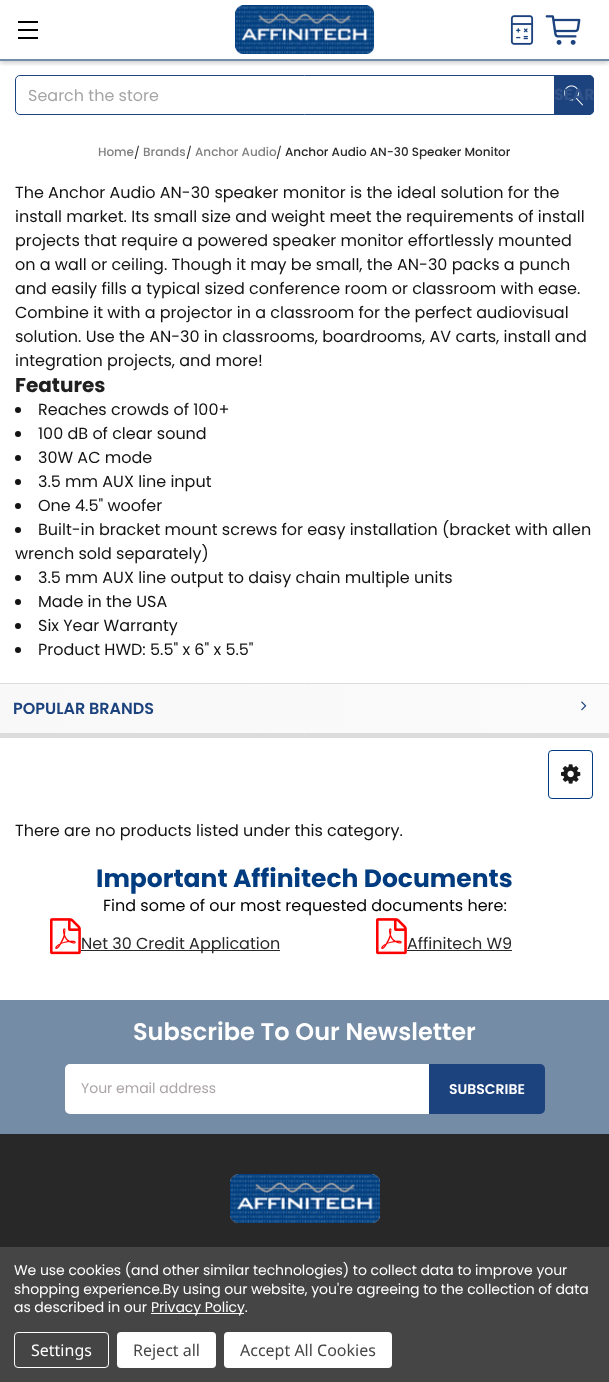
<!DOCTYPE html>
<meta charset="utf-8">
<style>body { margin: 0 } canvas { display: block }</style>
<canvas id="canvas" width="609" height="1382"></canvas>
<script type="module">
  const canvas = document.getElementById("canvas");
  const ctx = canvas.getContext("2d");
  ctx.miterLimit = 4;
  ctx.fontKerning = "normal";
  async function loadImage(src) {
    const img = new Image();
    img.src = src;
    await img.decode();
    return img;
  }
  let gradient;

  ctx.fillStyle = "#ffffff";
  ctx.fillRect(0, 0, 609, 1382);
  ctx.save();
  ctx.beginPath();
  ctx.rect(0, 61, 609, 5);
  ctx.clip();
  ctx.fillStyle = "rgba(0, 0, 0, 0.2)";
  ctx.filter = "blur(2.5px)";
  ctx.beginPath();
  ctx.rect(0, 2, 609, 61);
  ctx.fill();
  ctx.filter = "none";
  ctx.restore();
  ctx.fillStyle = "#748ca6";
  ctx.fillRect(0, 59, 609, 2);
  ctx.drawImage(await loadImage("img1.png"), 235, 5, 140, 49);
  ctx.drawImage(await loadImage("img2.png"), 510, 15, 24, 30);
  ctx.drawImage(await loadImage("img3.png"), 545, 15, 36, 30);
  ctx.fillStyle = "#000000";
  ctx.fillRect(18, 29, 20, 2);
  ctx.fillRect(18, 21, 20, 2);
  ctx.fillRect(18, 37, 20, 2);
  ctx.beginPath();
  ctx.roundRect(15.5, 75.5, 578, 39, 4.5);
  ctx.strokeStyle = "#1d437e";
  ctx.stroke();
  ctx.fillStyle = "#1d437e";
  ctx.beginPath();
  ctx.roundRect(554, 75, 40, 40, [0, 5, 5, 0]);
  ctx.fill();
  ctx.drawImage(await loadImage("img4.png"), 564, 85, 19, 21);
  ctx.font = "16px Poppins";
  ctx.fillStyle = "#a5a5a5";
  ctx.fillText("Search the store", 28, 101);
  ctx.font = "bold 16px Poppins";
  ctx.fillStyle = "#315389";
  ctx.fillText("SEAR", 554, 100);
  ctx.font = "500 12px Poppins";
  ctx.fillStyle = "#808080";
  ctx.fillText("Home", 98, 156);
  ctx.font = "12px Poppins";
  ctx.fillStyle = "#282828";
  ctx.fillText("/", 134, 157);
  ctx.font = "500 12px Poppins";
  ctx.fillStyle = "#808080";
  ctx.fillText("Brands", 143, 156);
  ctx.font = "12px Poppins";
  ctx.fillStyle = "#282828";
  ctx.fillText("/", 186, 157);
  ctx.font = "500 12px Poppins";
  ctx.fillStyle = "#808080";
  ctx.fillText("Anchor Audio", 195, 156);
  ctx.font = "12px Poppins";
  ctx.fillStyle = "#282828";
  ctx.fillText("/", 276, 157);
  ctx.font = "500 12px Poppins";
  ctx.fillText("Anchor Audio AN-30 Speaker Monitor", 285, 156);
  ctx.font = "16px Poppins";
  ctx.fillStyle = "#131313";
  ctx.fillText("The Anchor Audio AN-30 speaker monitor is the ideal solution for the", 15, 198);
  ctx.fillText("install market. Its small size and weight meet the requirements of install", 15, 222);
  ctx.fillText("projects that require a powered speaker monitor effortlessly mounted", 15, 246);
  ctx.fillText("on a wall or ceiling. Though it may be small, the AN-30 packs a punch", 15, 270);
  ctx.fillText("and easily fills a typical sized conference room or classroom with ease.", 15, 294);
  ctx.fillText("Combine it with a projector in a classroom for the perfect audiovisual", 15, 318);
  ctx.fillText("solution. Use the AN-30 in classrooms, boardrooms, AV carts, install and", 15, 342);
  ctx.fillText("integration projects, and more!", 15, 366);
  ctx.font = "bold 20px Poppins";
  ctx.fillStyle = "#202020";
  ctx.fillText("Features", 15, 392);
  ctx.fillStyle = "#131313";
  ctx.beginPath();
  ctx.arc(18, 410, 3, 0, Math.PI * 2);
  ctx.fill();
  ctx.font = "16px Poppins";
  ctx.fillText("Reaches crowds of 100+", 38, 415);
  ctx.beginPath();
  ctx.arc(18, 434, 3, 0, Math.PI * 2);
  ctx.fill();
  ctx.fillText("100 dB of clear sound", 38, 439);
  ctx.beginPath();
  ctx.arc(18, 458, 3, 0, Math.PI * 2);
  ctx.fill();
  ctx.fillText("30W AC mode", 38, 463);
  ctx.beginPath();
  ctx.arc(18, 482, 3, 0, Math.PI * 2);
  ctx.fill();
  ctx.fillText("3.5 mm AUX line input", 38, 487);
  ctx.beginPath();
  ctx.arc(18, 506, 3, 0, Math.PI * 2);
  ctx.fill();
  ctx.fillText("One 4.5\" woofer", 38, 511);
  ctx.beginPath();
  ctx.arc(18, 530, 3, 0, Math.PI * 2);
  ctx.fill();
  ctx.fillText("Built-in bracket mount screws for easy installation (bracket with allen", 38, 535);
  ctx.fillText("wrench sold separately)", 15, 559);
  ctx.beginPath();
  ctx.arc(18, 578, 3, 0, Math.PI * 2);
  ctx.fill();
  ctx.fillText("3.5 mm AUX line output to daisy chain multiple units", 38, 583);
  ctx.beginPath();
  ctx.arc(18, 602, 3, 0, Math.PI * 2);
  ctx.fill();
  ctx.fillText("Made in the USA", 38, 607);
  ctx.beginPath();
  ctx.arc(18, 626, 3, 0, Math.PI * 2);
  ctx.fill();
  ctx.fillText("Six Year Warranty", 38, 631);
  ctx.beginPath();
  ctx.arc(18, 650, 3, 0, Math.PI * 2);
  ctx.fill();
  ctx.fillText("Product HWD: 5.5\" x 6\" x 5.5\"", 38, 655);
  ctx.fillStyle = "#dcdcdc";
  ctx.beginPath();
  ctx.moveTo(-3, 731);
  ctx.lineTo(-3, 734);
  ctx.bezierCurveTo(-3, 736, -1, 738, 1, 738);
  ctx.lineTo(608, 738);
  ctx.bezierCurveTo(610, 738, 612, 736, 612, 734);
  ctx.lineTo(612, 731);
  ctx.bezierCurveTo(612, 733, 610, 735, 608, 735);
  ctx.lineTo(1, 735);
  ctx.bezierCurveTo(-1, 735, -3, 733, -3, 731);
  ctx.closePath();
  ctx.fill();
  ctx.beginPath();
  ctx.roundRect(-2.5, 683.5, 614, 51, 3.5);
  ctx.strokeStyle = "#dcdcdc";
  ctx.stroke();
  gradient = ctx.createLinearGradient(-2, 709, 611, 709);
  gradient.addColorStop(0, "#f8f8f8");
  gradient.addColorStop(1, "rgba(248, 248, 248, 0.6)");
  ctx.fillStyle = gradient;
  ctx.fillRect(0, 684, 609, 49);
  ctx.fillStyle = "#dcdcdc";
  ctx.fillRect(0, 733, 609, 1);
  ctx.font = "600 16px Poppins";
  ctx.fillStyle = "#1d437e";
  ctx.fillText("POPULAR BRANDS", 13, 714);
  ctx.drawImage(await loadImage("img5.png"), 581, 701, 6, 10);
  ctx.beginPath();
  ctx.roundRect(548.5, 750.5, 44, 48, 3.5);
  ctx.strokeStyle = "#003c7f";
  ctx.stroke();
  ctx.drawImage(await loadImage("img6.png"), 561, 764, 20, 20);
  ctx.font = "16px Poppins";
  ctx.fillStyle = "#131313";
  ctx.fillText("There are no products listed under this category.", 15, 836);
  ctx.font = "bold 25px Poppins";
  ctx.fillStyle = "#003c7f";
  ctx.fillText("Important Affinitech Documents", 96, 887);
  ctx.font = "16px Poppins";
  ctx.fillStyle = "#000000";
  ctx.fillText("Find some of our most requested documents here:", 103, 911);
  ctx.drawImage(await loadImage("img7.png"), 50, 918, 31, 37);
  ctx.fillStyle = "#282828";
  ctx.fillRect(81, 950, 199, 1);
  ctx.fillText("Net 30 Credit Application", 81, 949);
  ctx.drawImage(await loadImage("img7.png"), 376, 918, 31, 37);
  ctx.fillText("Affinitech W9", 407, 949);
  ctx.fillRect(407, 950, 105, 1);
  ctx.fillStyle = "#748ca6";
  ctx.fillRect(0, 1000, 609, 134);
  ctx.font = "600 24px Poppins";
  ctx.fillStyle = "#ffffff";
  ctx.fillText("Subscribe To Our Newsletter", 133, 1040);
  ctx.beginPath();
  ctx.roundRect(65, 1064, 364, 50, [5, 0, 0, 5]);
  ctx.fill();
  ctx.font = "14px Poppins";
  ctx.fillStyle = "#aba5a5";
  ctx.fillText("Your email address", 81, 1093);
  ctx.fillStyle = "#1d437e";
  ctx.beginPath();
  ctx.roundRect(429, 1064, 116, 50, [0, 5, 5, 0]);
  ctx.fill();
  ctx.font = "600 14px Poppins";
  ctx.fillStyle = "#ffffff";
  ctx.fillText("SUBSCRIBE", 449, 1094);
  ctx.fillStyle = "#282828";
  ctx.fillRect(0, 1134, 609, 113);
  ctx.drawImage(await loadImage("img8.png"), 230, 1174, 150, 49);
  ctx.fillStyle = "#454545";
  ctx.fillRect(0, 1247, 609, 135);
  ctx.letterSpacing = "-0.05px";
  ctx.font = "14px Poppins";
  ctx.fillStyle = "#ffffff";
  ctx.fillText("We use cookies (and other similar technologies) to collect data to improve your", 14, 1275);
  ctx.fillText("shopping experience.By using our website, you're agreeing to the collection of data", 14, 1294);
  ctx.fillText("as described in our", 14, 1312);
  ctx.fillRect(151, 1313, 93, 1);
  ctx.fillText("Privacy Policy.", 151, 1312);
  ctx.beginPath();
  ctx.roundRect(14.5, 1332.5, 94, 35, 3.5);
  ctx.strokeStyle = "#ffffff";
  ctx.stroke();
  ctx.letterSpacing = "0px";
  ctx.font = "16px Noto Sans";
  ctx.fillText("Settings", 31, 1356);
  ctx.beginPath();
  ctx.roundRect(117, 1332, 99, 36, 4);
  ctx.fill();
  ctx.fillStyle = "#454545";
  ctx.fillText("Reject all", 133, 1356);
  ctx.fillStyle = "#ffffff";
  ctx.beginPath();
  ctx.roundRect(224, 1332, 168, 36, 4);
  ctx.fill();
  ctx.fillStyle = "#454545";
  ctx.fillText("Accept All Cookies", 240, 1356);
</script>
